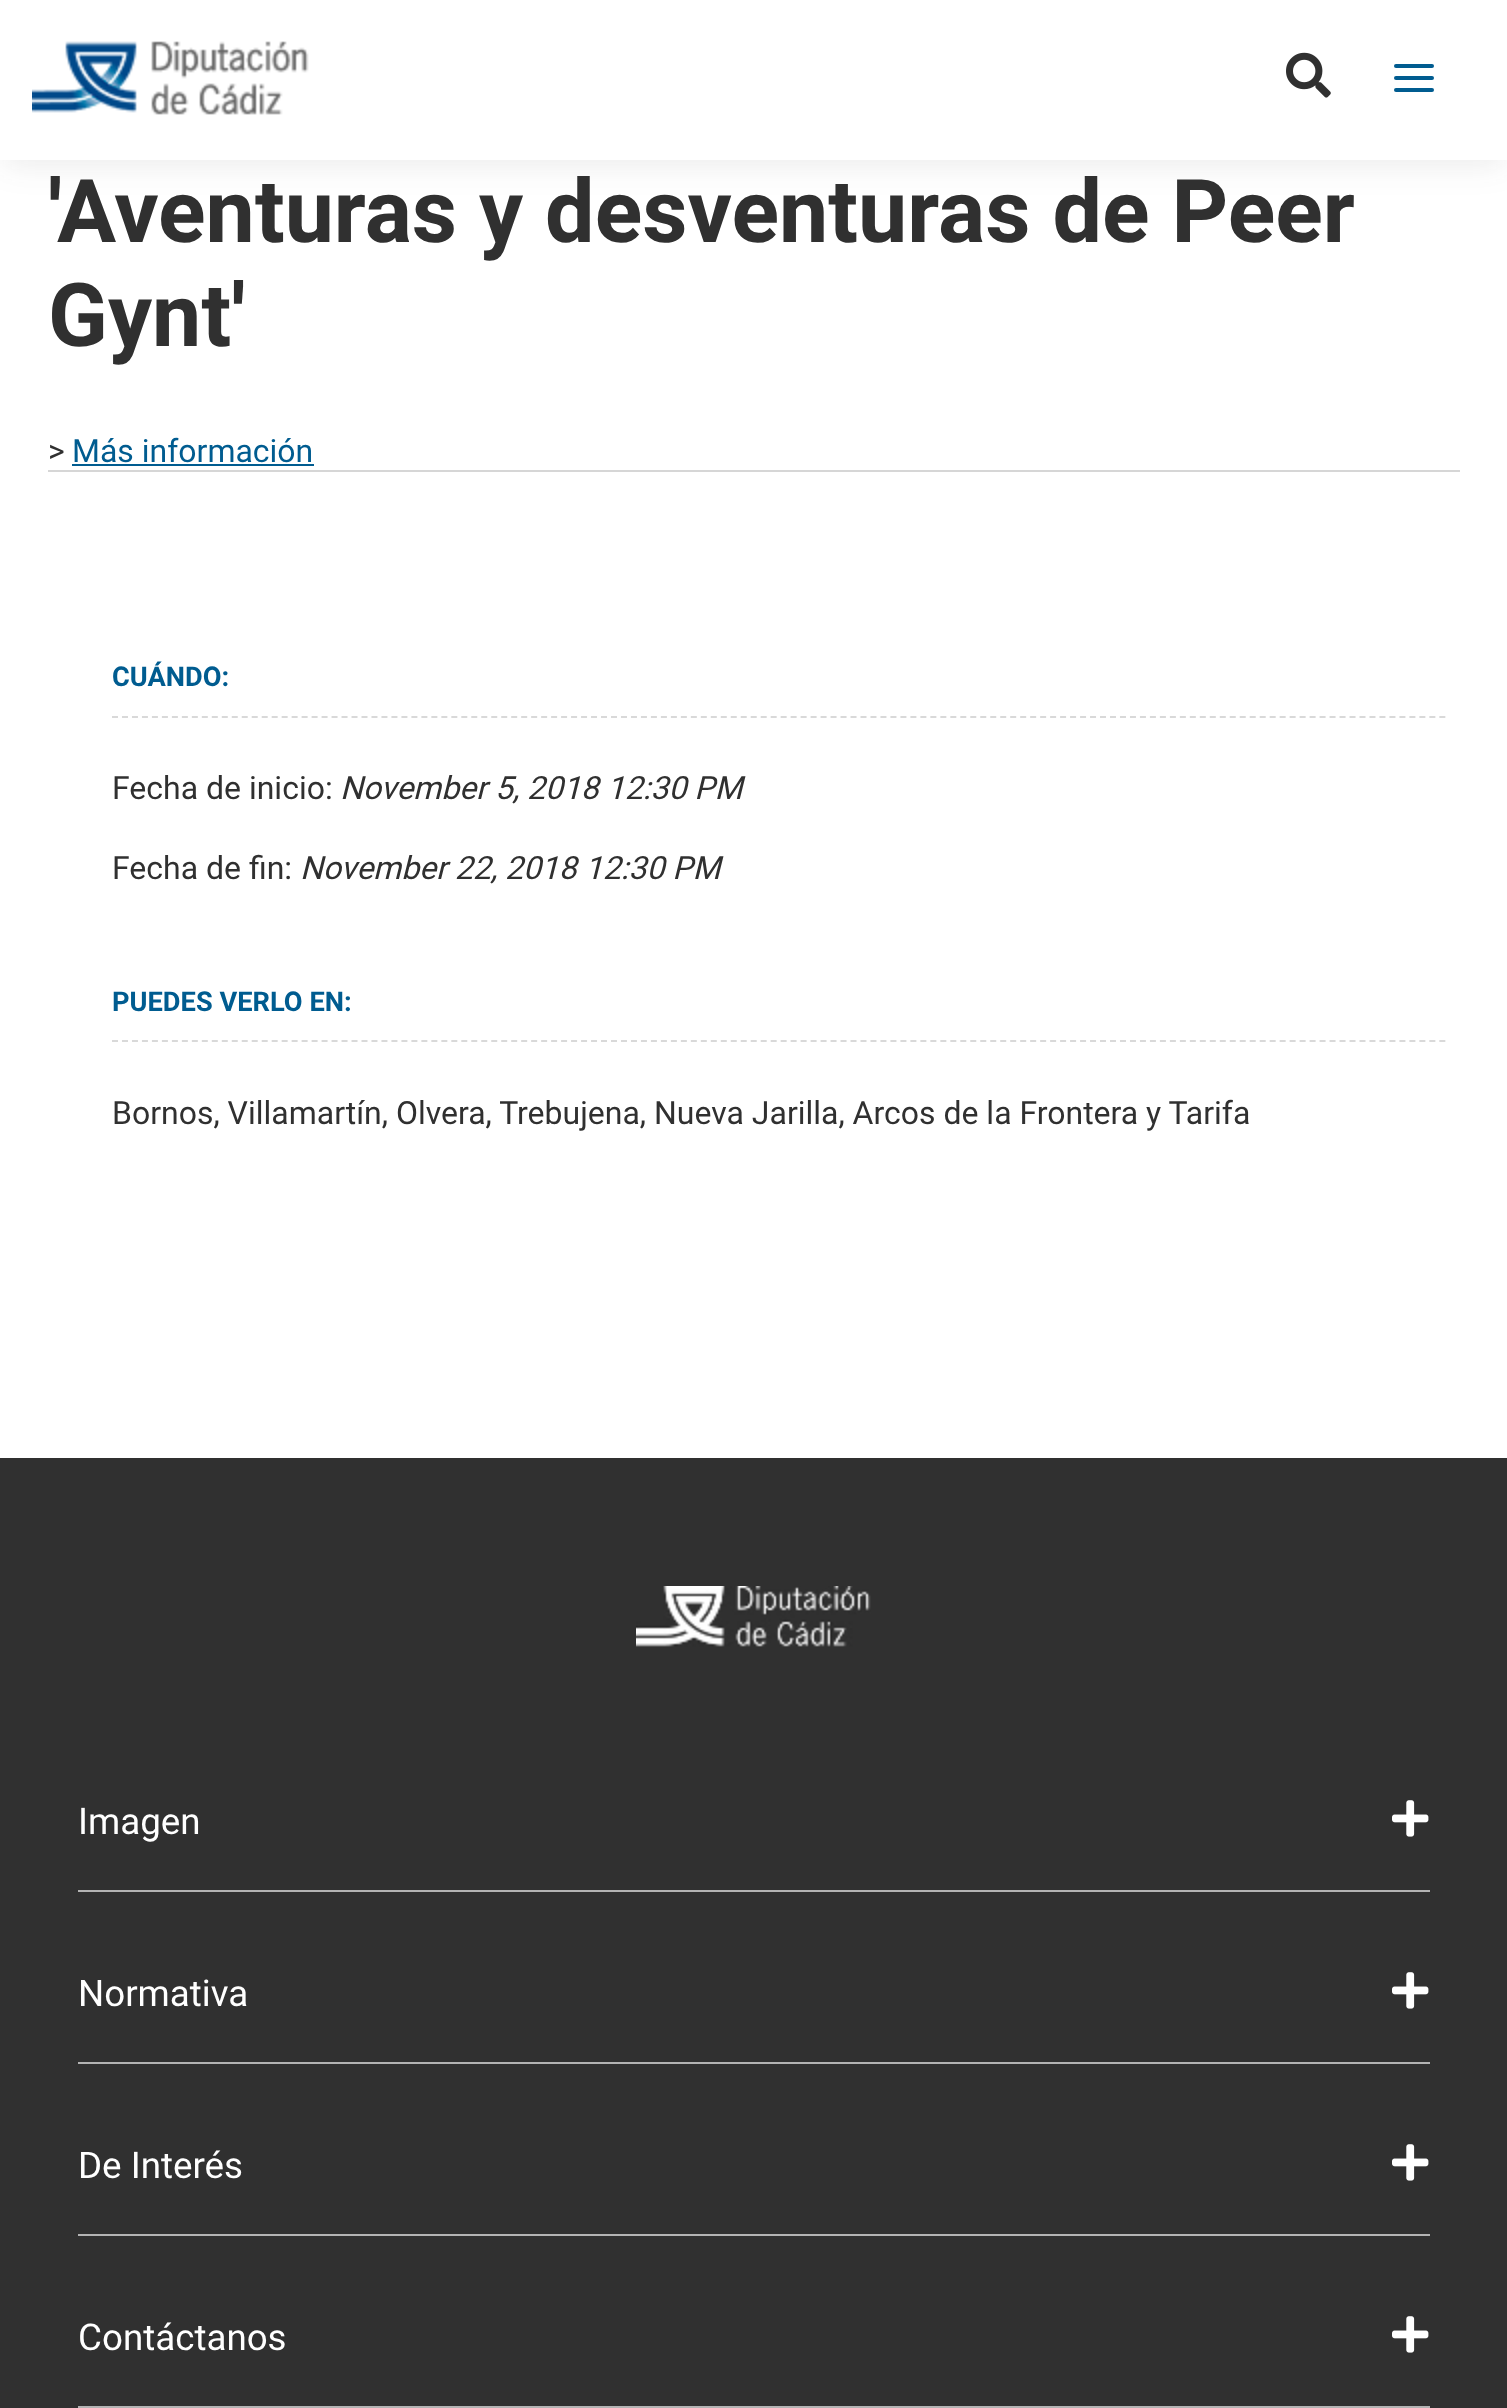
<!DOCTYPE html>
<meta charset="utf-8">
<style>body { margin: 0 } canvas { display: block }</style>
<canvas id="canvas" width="1507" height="2408"></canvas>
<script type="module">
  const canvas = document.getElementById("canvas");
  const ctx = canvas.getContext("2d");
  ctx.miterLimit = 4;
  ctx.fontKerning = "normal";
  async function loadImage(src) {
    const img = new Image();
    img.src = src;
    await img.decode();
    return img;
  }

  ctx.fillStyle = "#ffffff";
  ctx.fillRect(0, 0, 1507, 2408);
  ctx.fillStyle = "rgba(48, 48, 48, 0.1)";
  ctx.filter = "blur(16px)";
  ctx.beginPath();
  ctx.rect(4, 12, 1500, 152);
  ctx.fill();
  ctx.filter = "none";
  ctx.fillStyle = "#ffffff";
  ctx.fillRect(0, 0, 1507, 160);
  ctx.drawImage(await loadImage("img1.png"), 32, 41, 277, 74);
  ctx.drawImage(await loadImage("img2.png"), 1286, 52, 45, 46);
  ctx.fillStyle = "#005c90";
  ctx.beginPath();
  ctx.roundRect(1394, 64, 40, 4, 2);
  ctx.fill();
  ctx.beginPath();
  ctx.roundRect(1394, 76, 40, 4, 2);
  ctx.fill();
  ctx.beginPath();
  ctx.roundRect(1394, 88, 40, 4, 2);
  ctx.fill();
  ctx.fillStyle = "#d6d6d6";
  ctx.fillRect(48, 470, 1412, 2);
  ctx.font = "bold 88px Roboto";
  ctx.fillStyle = "#303030";
  ctx.fillText("'Aventuras y desventuras de Peer", 48, 242);
  ctx.fillText("Gynt'", 48, 346);
  ctx.font = "32px Roboto";
  ctx.fillText(">", 48, 462);
  ctx.fillStyle = "#005c90";
  ctx.fillText("Más información", 72, 462);
  ctx.fillRect(72, 464, 242, 2);
  ctx.beginPath();
  ctx.moveTo(112, 717);
  ctx.lineTo(1446, 717);
  ctx.strokeStyle = "#d9d9d9";
  ctx.lineWidth = 2;
  ctx.setLineDash([6, 3.98]);
  ctx.stroke();
  ctx.font = "bold 27.25px Roboto";
  ctx.fillText("CUÁNDO:", 112, 686);
  ctx.font = "32px Roboto";
  ctx.fillStyle = "#303030";
  ctx.fillText("Fecha de inicio:", 112, 799);
  ctx.font = "italic 32px Roboto";
  ctx.fillText("November 5, 2018 12:30 PM", 340, 799);
  ctx.font = "32px Roboto";
  ctx.fillText("Fecha de fin:", 112, 879);
  ctx.font = "italic 32px Roboto";
  ctx.fillText("November 22, 2018 12:30 PM", 300, 879);
  ctx.beginPath();
  ctx.moveTo(112, 1041);
  ctx.lineTo(1446, 1041);
  ctx.stroke();
  ctx.font = "bold 27.25px Roboto";
  ctx.fillStyle = "#005c90";
  ctx.fillText("PUEDES VERLO EN:", 112, 1011);
  ctx.font = "32px Roboto";
  ctx.fillStyle = "#303030";
  ctx.fillText("Bornos, Villamartín, Olvera, Trebujena, Nueva Jarilla, Arcos de la Frontera y Tarifa", 112, 1124);
  ctx.fillRect(0, 1458, 1507, 950);
  ctx.drawImage(await loadImage("img3.png"), 636, 1586, 235, 61);
  ctx.fillStyle = "#b3b3b3";
  ctx.fillRect(78, 1890, 1352, 2);
  ctx.font = "36.75px Roboto";
  ctx.fillStyle = "#ffffff";
  ctx.fillText("Imagen", 78, 1834);
  ctx.drawImage(await loadImage("img4.png"), 1392, 1800, 37, 37);
  ctx.fillStyle = "#b3b3b3";
  ctx.fillRect(78, 2062, 1352, 2);
  ctx.fillStyle = "#ffffff";
  ctx.fillText("Normativa", 78, 2006);
  ctx.drawImage(await loadImage("img4.png"), 1392, 1972, 37, 37);
  ctx.fillStyle = "#b3b3b3";
  ctx.fillRect(78, 2234, 1352, 2);
  ctx.fillStyle = "#ffffff";
  ctx.fillText("De Interés", 78, 2178);
  ctx.drawImage(await loadImage("img4.png"), 1392, 2144, 37, 37);
  ctx.fillStyle = "#b3b3b3";
  ctx.fillRect(78, 2406, 1352, 2);
  ctx.fillStyle = "#ffffff";
  ctx.fillText("Contáctanos", 78, 2350);
  ctx.drawImage(await loadImage("img4.png"), 1392, 2316, 37, 37);
</script>
